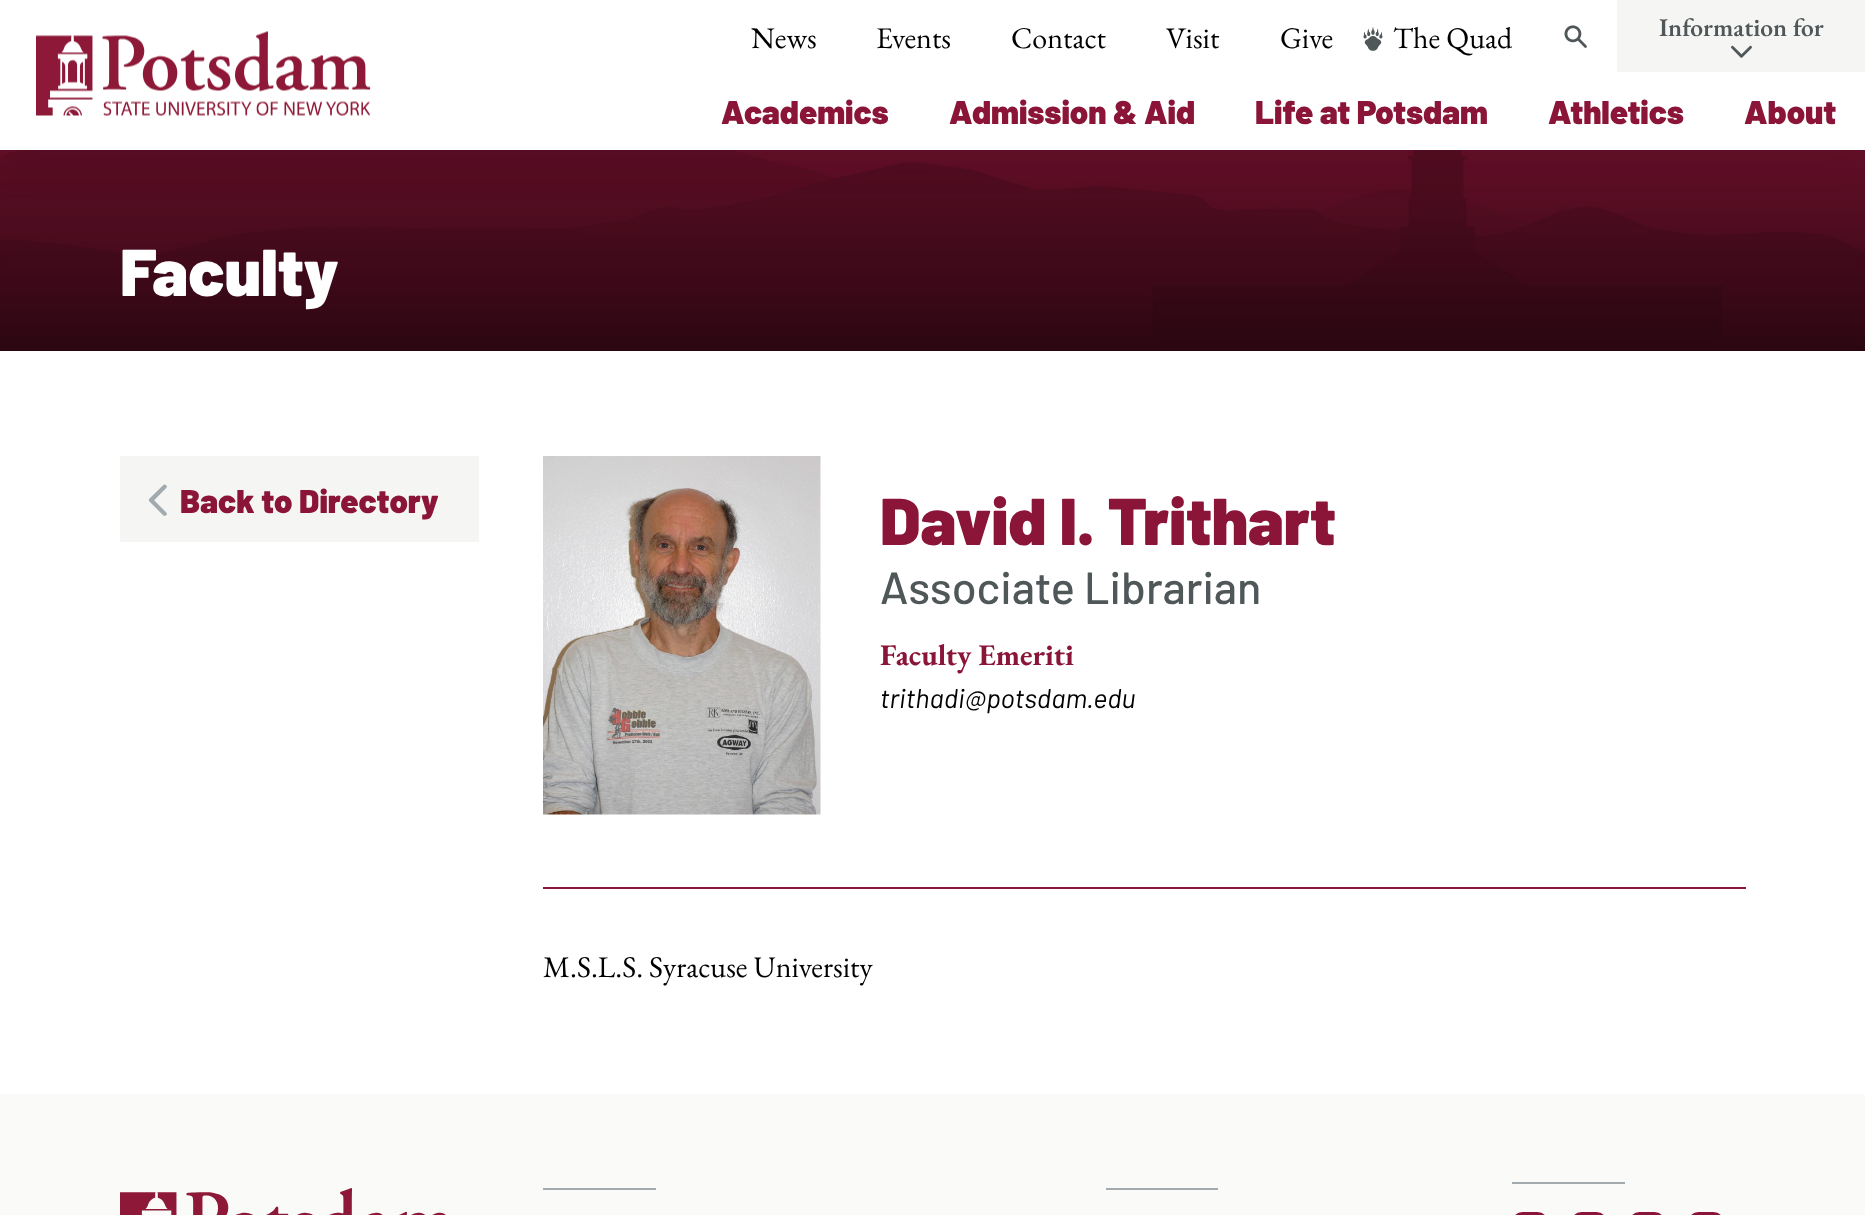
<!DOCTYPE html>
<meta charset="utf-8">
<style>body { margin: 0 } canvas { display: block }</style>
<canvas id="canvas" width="1865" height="1215"></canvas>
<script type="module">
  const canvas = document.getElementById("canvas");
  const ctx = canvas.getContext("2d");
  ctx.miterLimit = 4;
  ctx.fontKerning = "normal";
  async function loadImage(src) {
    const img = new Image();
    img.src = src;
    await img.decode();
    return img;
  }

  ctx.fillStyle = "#ffffff";
  ctx.fillRect(0, 0, 1865, 1215);
  ctx.drawImage(await loadImage("img5.png"), 0, 150, 1865, 201);
  ctx.fillStyle = "rgba(0, 0, 0, 0.1)";
  ctx.filter = "blur(22.5px)";
  ctx.beginPath();
  ctx.rect(0, 0, 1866, 150);
  ctx.fill();
  ctx.filter = "none";
  ctx.fillStyle = "#ffffff";
  ctx.fillRect(0, 0, 1617, 150);
  ctx.drawImage(await loadImage("img1.png"), 36, 31, 335, 85);
  ctx.font = "30px EB Garamond";
  ctx.fillStyle = "#000000";
  ctx.fillText("News", 751, 48);
  ctx.fillText("Events", 876, 48);
  ctx.fillText("Contact", 1011, 48);
  ctx.fillText("Visit", 1166, 48);
  ctx.fillText("Give", 1280, 48);
  ctx.drawImage(await loadImage("img2.png"), 1363, 27, 20, 24);
  ctx.fillText("The Quad", 1393, 48);
  ctx.drawImage(await loadImage("img3.png"), 1564, 25, 23, 23);
  ctx.fillStyle = "#f5f5f4";
  ctx.fillRect(1617, 0, 248, 72);
  ctx.font = "600 25.5px EB Garamond";
  ctx.fillStyle = "#505759";
  ctx.fillText("Information for", 1659, 36);
  ctx.drawImage(await loadImage("img4.png"), 1731, 45, 21, 13);
  ctx.font = "900 33px Barlow";
  ctx.fillStyle = "#8a1538";
  ctx.fillText("Academics", 721, 124);
  ctx.fillText("Admission & Aid", 949, 124);
  ctx.fillText("Life at Potsdam", 1255, 124);
  ctx.fillStyle = "#ffffff";
  ctx.fillRect(1617, 72, 248, 78);
  ctx.fillStyle = "#8a1538";
  ctx.fillText("Athletics", 1548, 124);
  ctx.fillText("About", 1744, 124);
  ctx.font = "900 66px Barlow";
  ctx.fillStyle = "#ffffff";
  ctx.fillText("Faculty", 120, 296);
  ctx.fillStyle = "#f5f5f4";
  ctx.fillRect(120, 456, 359, 86);
  ctx.drawImage(await loadImage("img6.png"), 148, 484, 19, 32);
  ctx.font = "900 33px Barlow";
  ctx.fillStyle = "#8a1538";
  ctx.fillText("Back to Directory", 180, 513);
  ctx.drawImage(await loadImage("img7.png"), 543, 456, 278, 359);
  ctx.font = "900 66px Barlow";
  ctx.fillText("David I. Trithart", 880, 545);
  ctx.font = "500 45px Barlow";
  ctx.fillStyle = "#505759";
  ctx.fillText("Associate Librarian", 880, 604);
  ctx.font = "bold 30px EB Garamond";
  ctx.fillStyle = "#8a1538";
  ctx.fillText("Faculty Emeriti", 880, 665);
  ctx.font = "italic 27px Barlow";
  ctx.fillStyle = "#000000";
  ctx.fillText("trithadi@potsdam.edu", 880, 708);
  ctx.fillStyle = "#8a1538";
  ctx.fillRect(543, 887, 1203, 2);
  ctx.font = "30px EB Garamond";
  ctx.fillStyle = "#000000";
  ctx.fillText("M.S.L.S. Syracuse University", 543, 977);
  ctx.fillStyle = "#fafaf9";
  ctx.fillRect(0, 1094, 1865, 121);
  ctx.drawImage(await loadImage("img8.png"), 120, 1188, 326, 27);
  ctx.fillStyle = "#a2aaad";
  ctx.fillRect(543, 1188, 113, 2);
  ctx.fillRect(1106, 1188, 112, 2);
  ctx.fillRect(1512, 1182, 113, 2);
  ctx.fillStyle = "#8a1538";
  ctx.beginPath();
  ctx.roundRect(1512, 1212, 36, 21, 18);
  ctx.fill();
  ctx.beginPath();
  ctx.roundRect(1571, 1212, 36, 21, 18);
  ctx.fill();
  ctx.beginPath();
  ctx.roundRect(1629, 1212, 36, 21, 18);
  ctx.fill();
  ctx.beginPath();
  ctx.roundRect(1688, 1212, 36, 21, 18);
  ctx.fill();
</script>
